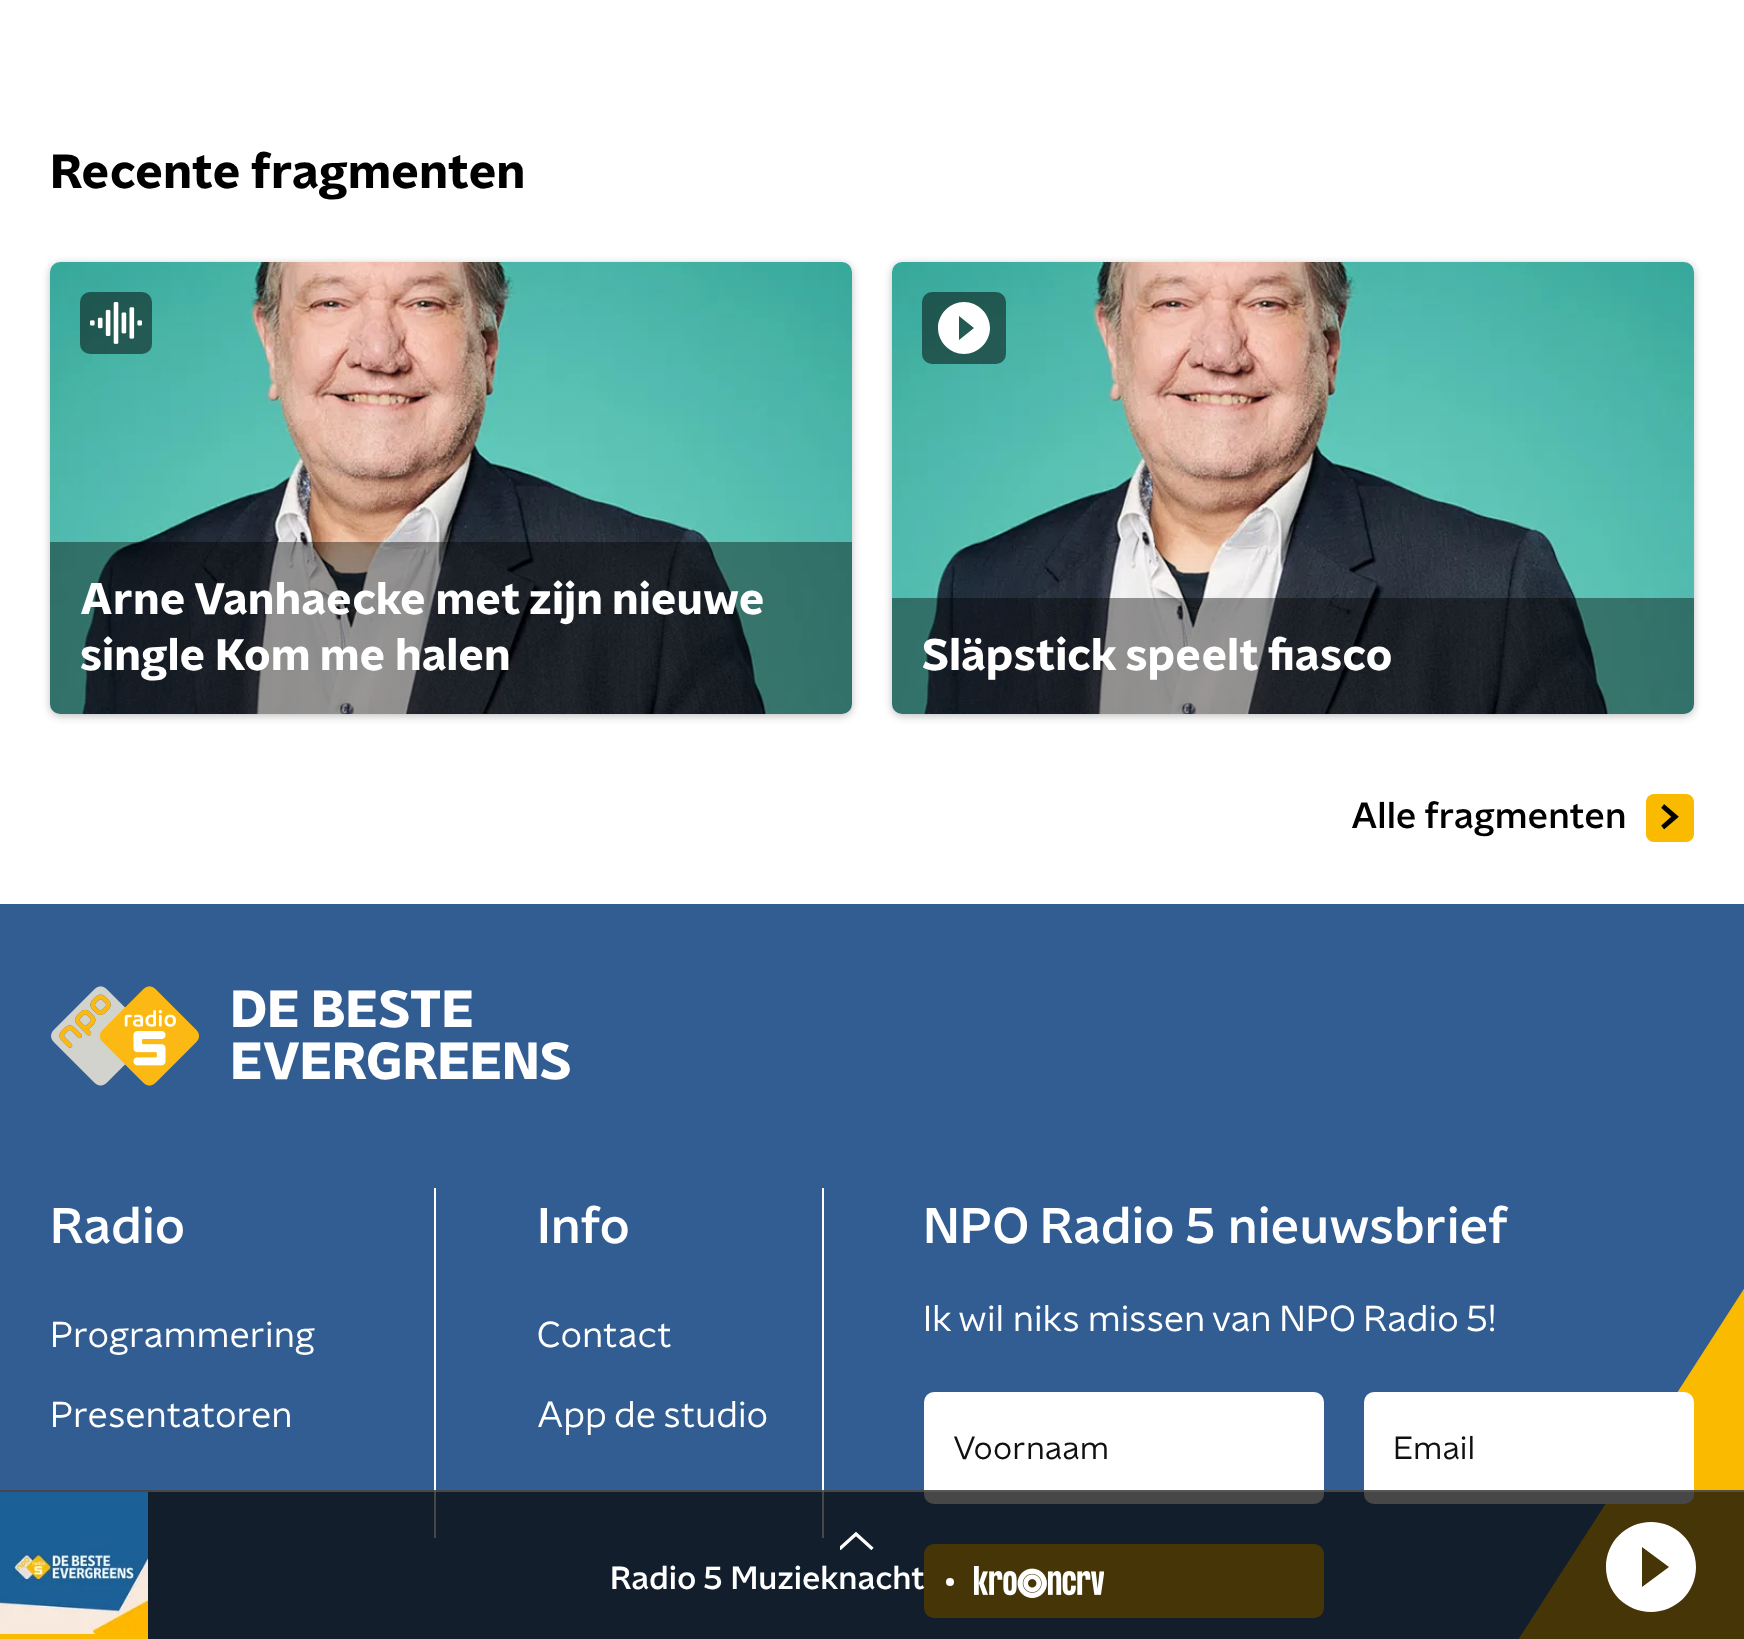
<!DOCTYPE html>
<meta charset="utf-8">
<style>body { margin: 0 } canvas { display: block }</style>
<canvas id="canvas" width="1744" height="1639"></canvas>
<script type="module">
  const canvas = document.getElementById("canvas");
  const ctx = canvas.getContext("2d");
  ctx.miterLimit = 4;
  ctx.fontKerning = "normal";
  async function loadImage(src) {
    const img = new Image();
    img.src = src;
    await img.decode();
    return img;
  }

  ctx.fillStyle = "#ffffff";
  ctx.fillRect(0, 0, 1744, 1639);
  ctx.font = "bold 48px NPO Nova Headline";
  ctx.fillStyle = "#000000";
  ctx.fillText("Recente fragmenten", 50, 188);
  ctx.fillStyle = "rgba(0, 0, 0, 0.25)";
  ctx.filter = "blur(4px)";
  ctx.beginPath();
  ctx.roundRect(50, 264, 802, 452, 10);
  ctx.fill();
  ctx.filter = "none";
  ctx.fillStyle = "#ffffff";
  ctx.beginPath();
  ctx.roundRect(50, 262, 802, 452, 10);
  ctx.fill();
  ctx.drawImage(await loadImage("img1.png"), 50, 262, 802, 452);
  ctx.fillStyle = "rgba(0, 0, 0, 0.5)";
  ctx.beginPath();
  ctx.roundRect(80, 292, 72, 62, 10);
  ctx.fill();
  ctx.drawImage(await loadImage("img2.png"), 90, 302, 52, 42);
  ctx.fillStyle = "rgba(0, 0, 0, 0.4)";
  ctx.beginPath();
  ctx.roundRect(50, 542, 802, 172, [0, 0, 10, 10]);
  ctx.fill();
  ctx.font = "bold 44px NPO Nova Headline";
  ctx.fillStyle = "#ffffff";
  ctx.fillText("Arne Vanhaecke met zijn nieuwe", 80, 614);
  ctx.fillText("single Kom me halen", 80, 670);
  ctx.fillStyle = "rgba(0, 0, 0, 0.25)";
  ctx.filter = "blur(4px)";
  ctx.beginPath();
  ctx.roundRect(892, 264, 802, 452, 10);
  ctx.fill();
  ctx.filter = "none";
  ctx.fillStyle = "#ffffff";
  ctx.beginPath();
  ctx.roundRect(892, 262, 802, 452, 10);
  ctx.fill();
  ctx.drawImage(await loadImage("img3.png"), 892, 262, 802, 452);
  ctx.fillStyle = "rgba(0, 0, 0, 0.5)";
  ctx.beginPath();
  ctx.roundRect(922, 292, 84, 72, 10);
  ctx.fill();
  ctx.fillStyle = "#ffffff";
  ctx.beginPath();
  ctx.moveTo(964, 302);
  ctx.bezierCurveTo(950, 302, 938, 314, 938, 328);
  ctx.bezierCurveTo(938, 342, 950, 354, 964, 354);
  ctx.bezierCurveTo(978, 354, 990, 342, 990, 328);
  ctx.bezierCurveTo(990, 314, 978, 302, 964, 302);
  ctx.closePath();
  ctx.moveTo(959, 340);
  ctx.lineTo(959, 316);
  ctx.lineTo(974, 328);
  ctx.closePath();
  ctx.fill();
  ctx.fillStyle = "rgba(0, 0, 0, 0.4)";
  ctx.beginPath();
  ctx.roundRect(892, 598, 802, 116, [0, 0, 10, 10]);
  ctx.fill();
  ctx.fillStyle = "#ffffff";
  ctx.fillText("Släpstick speelt fiasco", 922, 670);
  ctx.font = "500 36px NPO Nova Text";
  ctx.fillStyle = "#000000";
  ctx.fillText("Alle fragmenten", 1351, 828);
  ctx.drawImage(await loadImage("img4.png"), 1646, 794, 48, 48);
  ctx.fillStyle = "#325d92";
  ctx.fillRect(0, 904, 1744, 735);
  ctx.drawImage(await loadImage("img5.png"), 51, 986, 148, 100);
  ctx.font = "bold 52px NPO Nova Headline";
  ctx.fillStyle = "#ffffff";
  ctx.fillText("DE BESTE", 230, 1027);
  ctx.fillText("EVERGREENS", 230, 1079);
  ctx.fillRect(822, 1188, 2, 350);
  ctx.font = "500 50px NPO Nova Text";
  ctx.fillText("Radio", 50, 1243);
  ctx.font = "36px NPO Nova Text";
  ctx.fillText("Programmering", 50, 1347);
  ctx.fillText("Presentatoren", 50, 1427);
  ctx.fillRect(434, 1188, 2, 350);
  ctx.font = "500 50px NPO Nova Text";
  ctx.fillText("Info", 537, 1243);
  ctx.font = "36px NPO Nova Text";
  ctx.fillText("Contact", 537, 1347);
  ctx.fillText("App de studio", 537, 1427);
  ctx.font = "500 50px NPO Nova Text";
  ctx.fillText("NPO Radio 5 nieuwsbrief", 923, 1243);
  ctx.font = "36px NPO Nova Text";
  ctx.fillText("Ik wil niks missen van NPO Radio 5!", 923, 1331);
  ctx.beginPath();
  ctx.roundRect(924, 1392, 400, 112, 10);
  ctx.fill();
  ctx.font = "32px NPO Nova Text";
  ctx.fillStyle = "#101010";
  ctx.fillText("Voornaam", 953, 1459);
  ctx.fillStyle = "#faba00";
  ctx.beginPath();
  ctx.moveTo(1500, 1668);
  ctx.lineTo(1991, 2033);
  ctx.lineTo(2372, 1441);
  ctx.lineTo(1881, 1076);
  ctx.closePath();
  ctx.fill();
  ctx.fillStyle = "#ffffff";
  ctx.beginPath();
  ctx.roundRect(1364, 1392, 330, 112, 10);
  ctx.fill();
  ctx.fillStyle = "#101010";
  ctx.fillText("Email", 1393, 1459);
  ctx.fillStyle = "#faba00";
  ctx.beginPath();
  ctx.roundRect(924, 1544, 400, 74, 10);
  ctx.fill();
  ctx.fillStyle = "rgba(9, 9, 9, 0.75)";
  ctx.fillRect(0, 1490, 1744, 149);
  ctx.fillStyle = "rgba(95, 95, 95, 0.65)";
  ctx.fillRect(0, 1490, 1744, 2);
  ctx.drawImage(await loadImage("img6.png"), 0, 1492, 148, 142);
  ctx.fillStyle = "#faba00";
  ctx.fillRect(0, 1634, 148, 5);
  ctx.save();
  ctx.beginPath();
  ctx.rect(840, 1530, 36, 20);
  ctx.clip();
  ctx.beginPath();
  ctx.moveTo(872.5, 1549);
  ctx.lineTo(856, 1534);
  ctx.lineTo(839.5, 1549);
  ctx.strokeStyle = "#ffffff";
  ctx.lineWidth = 3.3;
  ctx.stroke();
  ctx.restore();
  ctx.font = "500 32px NPO Nova Text";
  ctx.fillStyle = "#ffffff";
  ctx.fillText("Radio 5 Muzieknacht", 610, 1589);
  ctx.beginPath();
  ctx.arc(950, 1582, 4, 0, Math.PI * 2);
  ctx.fill();
  ctx.drawImage(await loadImage("img7.png"), 974, 1566, 130, 32);
  ctx.beginPath();
  ctx.moveTo(1651, 1522);
  ctx.bezierCurveTo(1626, 1522, 1606, 1542, 1606, 1567);
  ctx.bezierCurveTo(1606, 1592, 1626, 1612, 1651, 1612);
  ctx.bezierCurveTo(1676, 1612, 1696, 1592, 1696, 1567);
  ctx.bezierCurveTo(1696, 1542, 1676, 1522, 1651, 1522);
  ctx.closePath();
  ctx.moveTo(1642, 1587);
  ctx.lineTo(1642, 1547);
  ctx.lineTo(1669, 1567);
  ctx.closePath();
  ctx.fill();
</script>
